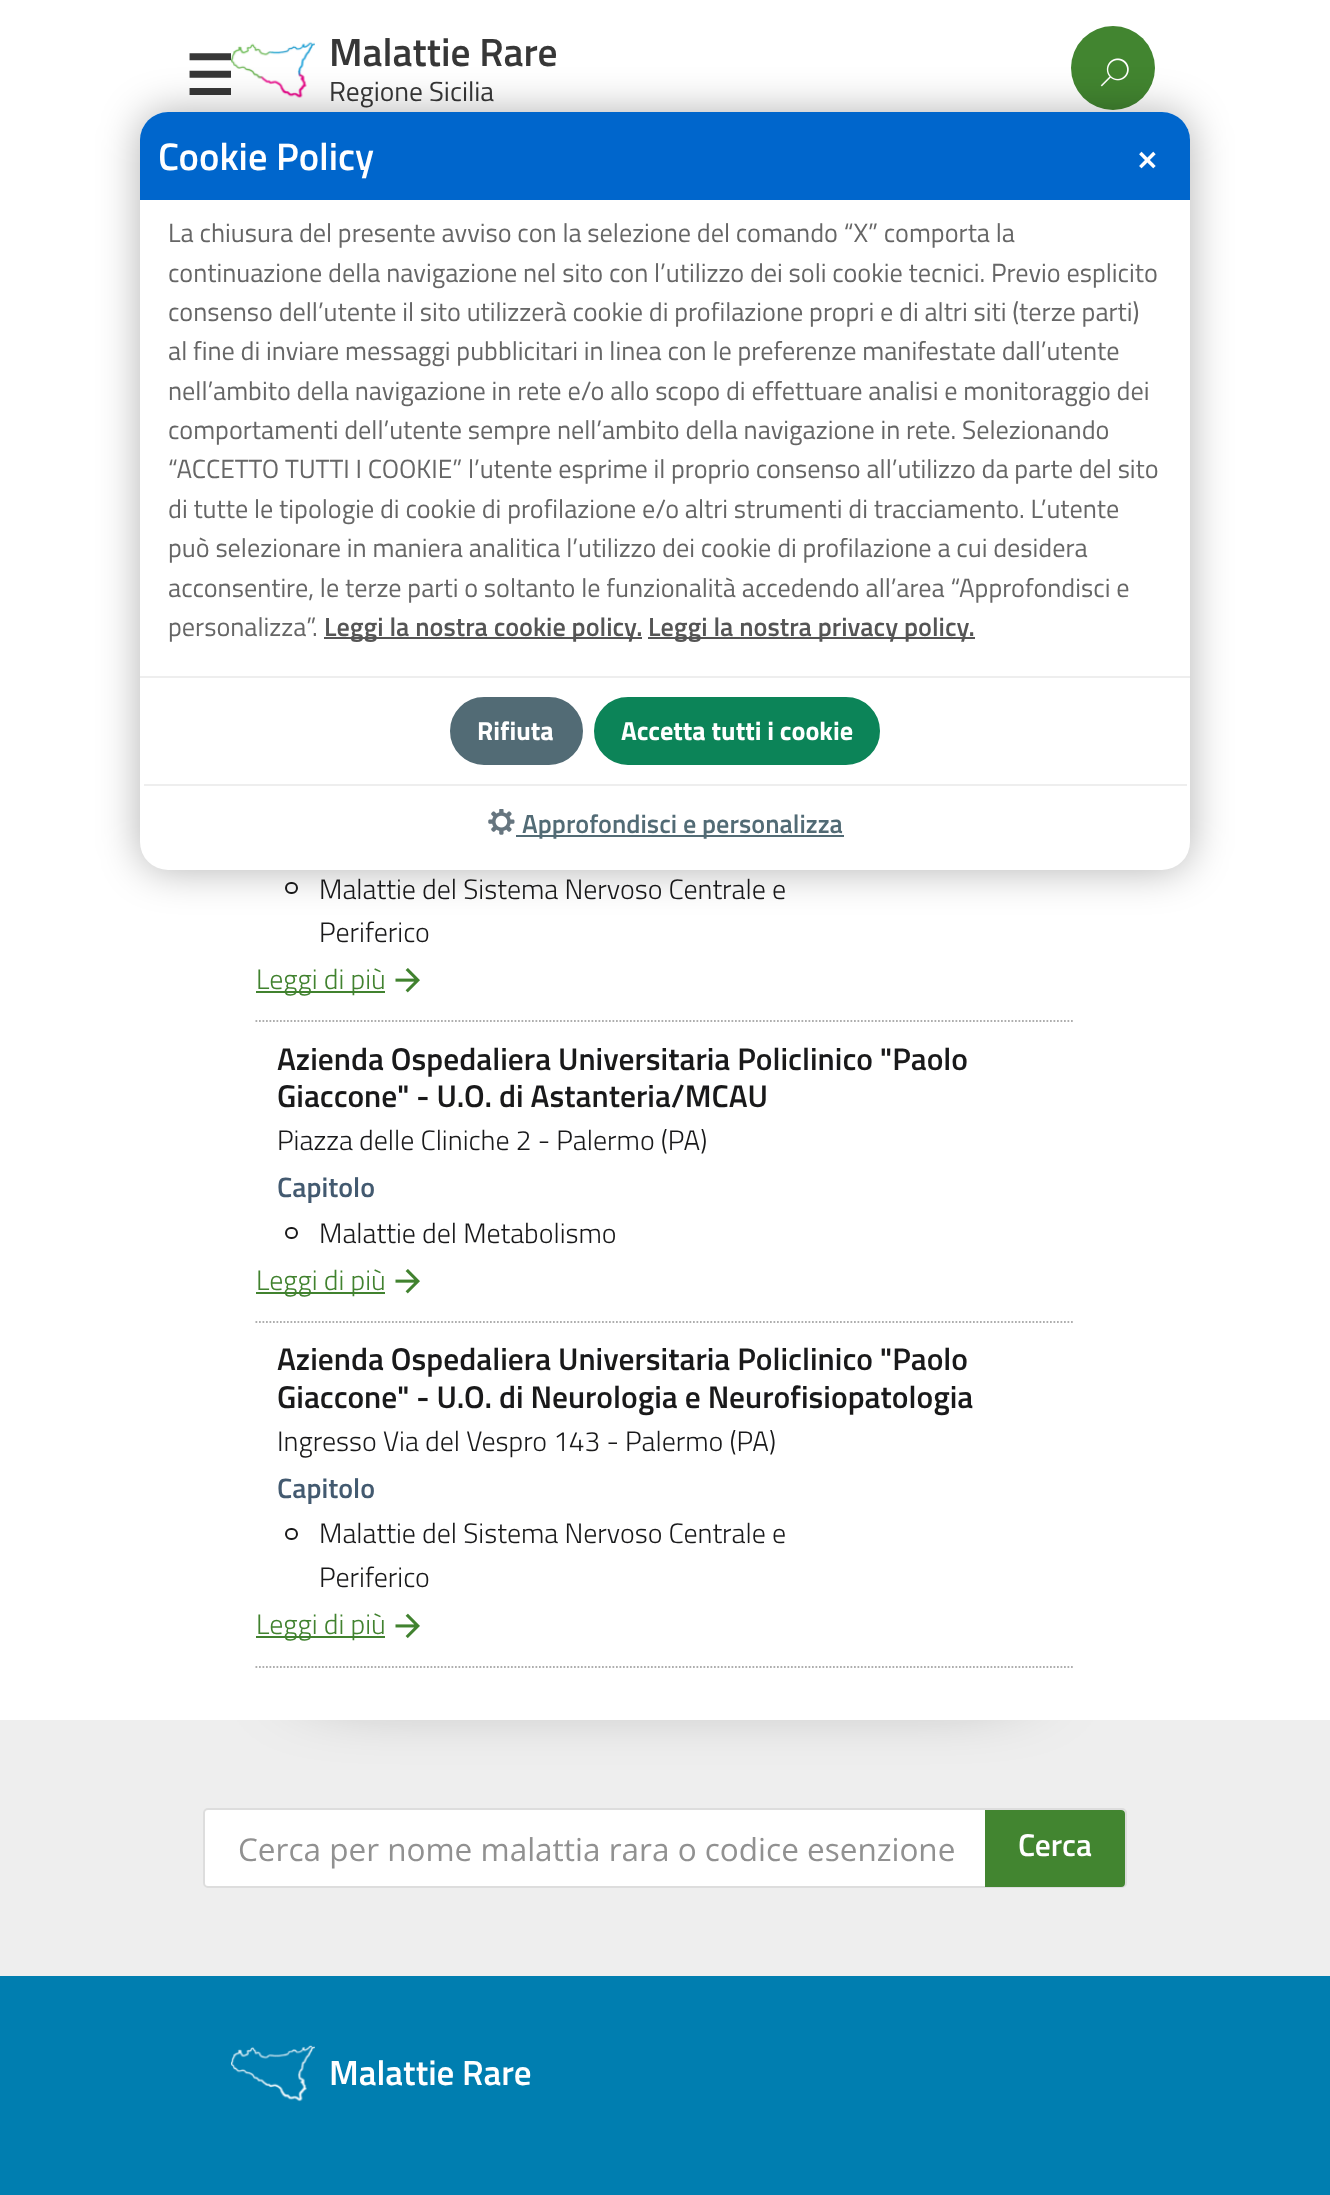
<!DOCTYPE html>
<meta charset="utf-8">
<style>body { margin: 0 } canvas { display: block }</style>
<canvas id="canvas" width="1330" height="2195"></canvas>
<script type="module">
  const canvas = document.getElementById("canvas");
  const ctx = canvas.getContext("2d");
  ctx.miterLimit = 4;
  ctx.fontKerning = "normal";
  async function loadImage(src) {
    const img = new Image();
    img.src = src;
    await img.decode();
    return img;
  }

  ctx.fillStyle = "#ffffff";
  ctx.fillRect(0, 0, 1330, 2195);
  ctx.font = "bold 55px DejaVu Sans";
  ctx.fillStyle = "#373737";
  ctx.fillText("☰", 185, 95);
  ctx.drawImage(await loadImage("img1.png"), 231, 41, 84, 57);
  ctx.font = "600 39.5px Titillium Web";
  ctx.fillText("Malattie Rare", 329, 66);
  ctx.font = "27.5px Titillium Web";
  ctx.fillText("Regione Sicilia", 329, 101);
  ctx.fillStyle = "#428530";
  ctx.beginPath();
  ctx.arc(1113, 68, 42, 0, Math.PI * 2);
  ctx.fill();
  ctx.drawImage(await loadImage("img2.png"), 1100, 58, 29, 29);
  ctx.beginPath();
  ctx.moveTo(255.5, 1021);
  ctx.lineTo(1074.5, 1021);
  ctx.strokeStyle = "#aeaeae";
  ctx.lineWidth = 1.8;
  ctx.setLineDash([1.75, 1.75]);
  ctx.stroke();
  ctx.beginPath();
  ctx.roundRect(286, 883, 11, 10, 5);
  ctx.strokeStyle = "#19191a";
  ctx.lineWidth = 2;
  ctx.setLineDash([]);
  ctx.stroke();
  ctx.font = "300 28px Titillium Web";
  ctx.fillStyle = "#19191a";
  ctx.fillText("Malattie del Sistema Nervoso Centrale e", 319, 899);
  ctx.fillText("Periferico", 319, 942);
  ctx.fillStyle = "#41822f";
  ctx.fillRect(256, 991, 129, 2);
  ctx.fillText("Leggi di più", 256, 989);
  ctx.drawImage(await loadImage("img3.png"), 395, 968, 25, 25);
  ctx.beginPath();
  ctx.moveTo(255.5, 1322);
  ctx.lineTo(1074.5, 1322);
  ctx.strokeStyle = "#aeaeae";
  ctx.lineWidth = 1.8;
  ctx.setLineDash([1.75, 1.75]);
  ctx.stroke();
  ctx.font = "600 31.5px Titillium Web";
  ctx.fillStyle = "#19191a";
  ctx.fillText("Azienda Ospedaliera Universitaria Policlinico \"Paolo", 277, 1070);
  ctx.fillText("Giaccone\" - U.O. di Astanteria/MCAU", 277, 1107);
  ctx.font = "300 28px Titillium Web";
  ctx.fillText("Piazza delle Cliniche 2 - Palermo (PA)", 277, 1150);
  ctx.font = "600 28px Titillium Web";
  ctx.fillStyle = "#435a70";
  ctx.fillText("Capitolo", 277, 1197);
  ctx.beginPath();
  ctx.roundRect(286, 1228, 11, 10, 5);
  ctx.strokeStyle = "#19191a";
  ctx.lineWidth = 2;
  ctx.setLineDash([]);
  ctx.stroke();
  ctx.font = "300 28px Titillium Web";
  ctx.fillStyle = "#19191a";
  ctx.fillText("Malattie del Metabolismo", 319, 1243);
  ctx.fillStyle = "#41822f";
  ctx.fillRect(256, 1292, 129, 2);
  ctx.fillText("Leggi di più", 256, 1290);
  ctx.drawImage(await loadImage("img3.png"), 395, 1269, 25, 25);
  ctx.beginPath();
  ctx.moveTo(255.5, 1667);
  ctx.lineTo(1074.5, 1667);
  ctx.strokeStyle = "#aeaeae";
  ctx.lineWidth = 1.8;
  ctx.setLineDash([1.75, 1.75]);
  ctx.stroke();
  ctx.font = "600 31.5px Titillium Web";
  ctx.fillStyle = "#19191a";
  ctx.fillText("Azienda Ospedaliera Universitaria Policlinico \"Paolo", 277, 1370);
  ctx.fillText("Giaccone\" - U.O. di Neurologia e Neurofisiopatologia", 277, 1408);
  ctx.font = "300 28px Titillium Web";
  ctx.fillText("Ingresso Via del Vespro 143 - Palermo (PA)", 277, 1451);
  ctx.font = "600 28px Titillium Web";
  ctx.fillStyle = "#435a70";
  ctx.fillText("Capitolo", 277, 1498);
  ctx.beginPath();
  ctx.roundRect(286, 1529, 11, 10, 5);
  ctx.strokeStyle = "#19191a";
  ctx.lineWidth = 2;
  ctx.setLineDash([]);
  ctx.stroke();
  ctx.font = "300 28px Titillium Web";
  ctx.fillStyle = "#19191a";
  ctx.fillText("Malattie del Sistema Nervoso Centrale e", 319, 1543);
  ctx.fillText("Periferico", 319, 1587);
  ctx.fillStyle = "#41822f";
  ctx.fillRect(256, 1636, 129, 2);
  ctx.fillText("Leggi di più", 256, 1634);
  ctx.drawImage(await loadImage("img4.png"), 395, 1613, 25, 26);
  ctx.fillStyle = "rgba(0, 0, 0, 0.3)";
  ctx.filter = "blur(21px)";
  ctx.beginPath();
  ctx.roundRect(140, 112, 1050, 758, 28);
  ctx.fill();
  ctx.filter = "none";
  ctx.fillStyle = "#ffffff";
  ctx.beginPath();
  ctx.roundRect(140, 112, 1050, 758, 28);
  ctx.fill();
  ctx.fillStyle = "#0066cc";
  ctx.beginPath();
  ctx.roundRect(140, 112, 1050, 88, [28, 28, 0, 0]);
  ctx.fill();
  ctx.font = "600 38.5px Titillium Web";
  ctx.fillStyle = "#ffffff";
  ctx.fillText("Cookie Policy", 158, 170);
  ctx.font = "bold 26.25px DejaVu Sans";
  ctx.fillText("✕", 1136, 170);
  ctx.font = "26.25px Titillium Web";
  ctx.fillStyle = "#666666";
  ctx.fillText("La chiusura del presente avviso con la selezione del comando “X” comporta la", 168, 242);
  ctx.fillText("continuazione della navigazione nel sito con l’utilizzo dei soli cookie tecnici. Previo esplicito", 168, 282);
  ctx.fillText("consenso dell’utente il sito utilizzerà cookie di profilazione propri e di altri siti (terze parti)", 168, 321);
  ctx.fillText("al fine di inviare messaggi pubblicitari in linea con le preferenze manifestate dall’utente", 168, 360);
  ctx.fillText("nell’ambito della navigazione in rete e/o allo scopo di effettuare analisi e monitoraggio dei", 168, 400);
  ctx.fillText("comportamenti dell’utente sempre nell’ambito della navigazione in rete. Selezionando", 168, 439);
  ctx.fillText("“ACCETTO TUTTI I COOKIE” l’utente esprime il proprio consenso all’utilizzo da parte del sito", 168, 478);
  ctx.fillText("di tutte le tipologie di cookie di profilazione e/o altri strumenti di tracciamento. L’utente", 168, 518);
  ctx.fillText("può selezionare in maniera analitica l’utilizzo dei cookie di profilazione a cui desidera", 168, 557);
  ctx.fillText("acconsentire, le terze parti o soltanto le funzionalità accedendo all’area “Approfondisci e", 168, 597);
  ctx.fillText("personalizza”.", 168, 636);
  ctx.fillStyle = "#555555";
  ctx.fillRect(324, 637, 318, 2);
  ctx.font = "600 26.25px Titillium Web";
  ctx.fillText("Leggi la nostra cookie policy.", 324, 636);
  ctx.fillRect(648, 637, 327, 2);
  ctx.fillText("Leggi la nostra privacy policy.", 648, 636);
  ctx.fillStyle = "#eeeeee";
  ctx.fillRect(140, 676, 1050, 2);
  ctx.fillStyle = "#526b75";
  ctx.beginPath();
  ctx.roundRect(449, 696, 135, 70, 35);
  ctx.fill();
  ctx.strokeStyle = "#ffffff";
  ctx.stroke();
  ctx.font = "bold 26.25px Titillium Web";
  ctx.fillStyle = "#ffffff";
  ctx.fillText("Rifiuta", 477, 740);
  ctx.fillStyle = "#0c8458";
  ctx.beginPath();
  ctx.roundRect(593, 696, 288, 70, 35);
  ctx.fill();
  ctx.stroke();
  ctx.fillStyle = "#ffffff";
  ctx.fillText("Accetta tutti i cookie", 621, 740);
  ctx.fillStyle = "#eeeeee";
  ctx.fillRect(144, 784, 1043, 2);
  ctx.drawImage(await loadImage("img5.png"), 488, 809, 27, 26);
  ctx.fillStyle = "#526b75";
  ctx.fillRect(516, 835, 328, 2);
  ctx.font = "600 26.25px Titillium Web";
  ctx.fillText("Approfondisci e personalizza", 522, 833);
  ctx.fillStyle = "#eeeeee";
  ctx.fillRect(0, 1720, 1330, 256);
  ctx.save();
  ctx.beginPath();
  ctx.rect(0, 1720, 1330, 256);
  ctx.clip();
  ctx.fillStyle = "#000000";
  ctx.filter = "blur(44px)";
  ctx.beginPath();
  ctx.rect(315, 1624, 700, 35);
  ctx.fill();
  ctx.filter = "none";
  ctx.restore();
  ctx.fillStyle = "#ffffff";
  ctx.beginPath();
  ctx.roundRect(204, 1809, 922, 78, 4);
  ctx.fill();
  ctx.strokeStyle = "#dddddd";
  ctx.stroke();
  ctx.font = "31.5px Open Sans";
  ctx.fillStyle = "#919191";
  ctx.fillText("Cerca per nome malattia rara o codice esenzione", 238, 1861);
  ctx.fillStyle = "#428530";
  ctx.beginPath();
  ctx.roundRect(985, 1810, 140, 77, [0, 4, 4, 0]);
  ctx.fill();
  ctx.font = "600 31.5px Titillium Web";
  ctx.fillStyle = "#ffffff";
  ctx.fillText("Cerca", 1018, 1856);
  ctx.fillStyle = "#007eb0";
  ctx.fillRect(0, 1976, 1330, 219);
  ctx.drawImage(await loadImage("img6.png"), 231, 2045, 84, 57);
  ctx.font = "600 35px Titillium Web";
  ctx.fillStyle = "#ffffff";
  ctx.fillText("Malattie Rare", 329, 2085);
</script>
